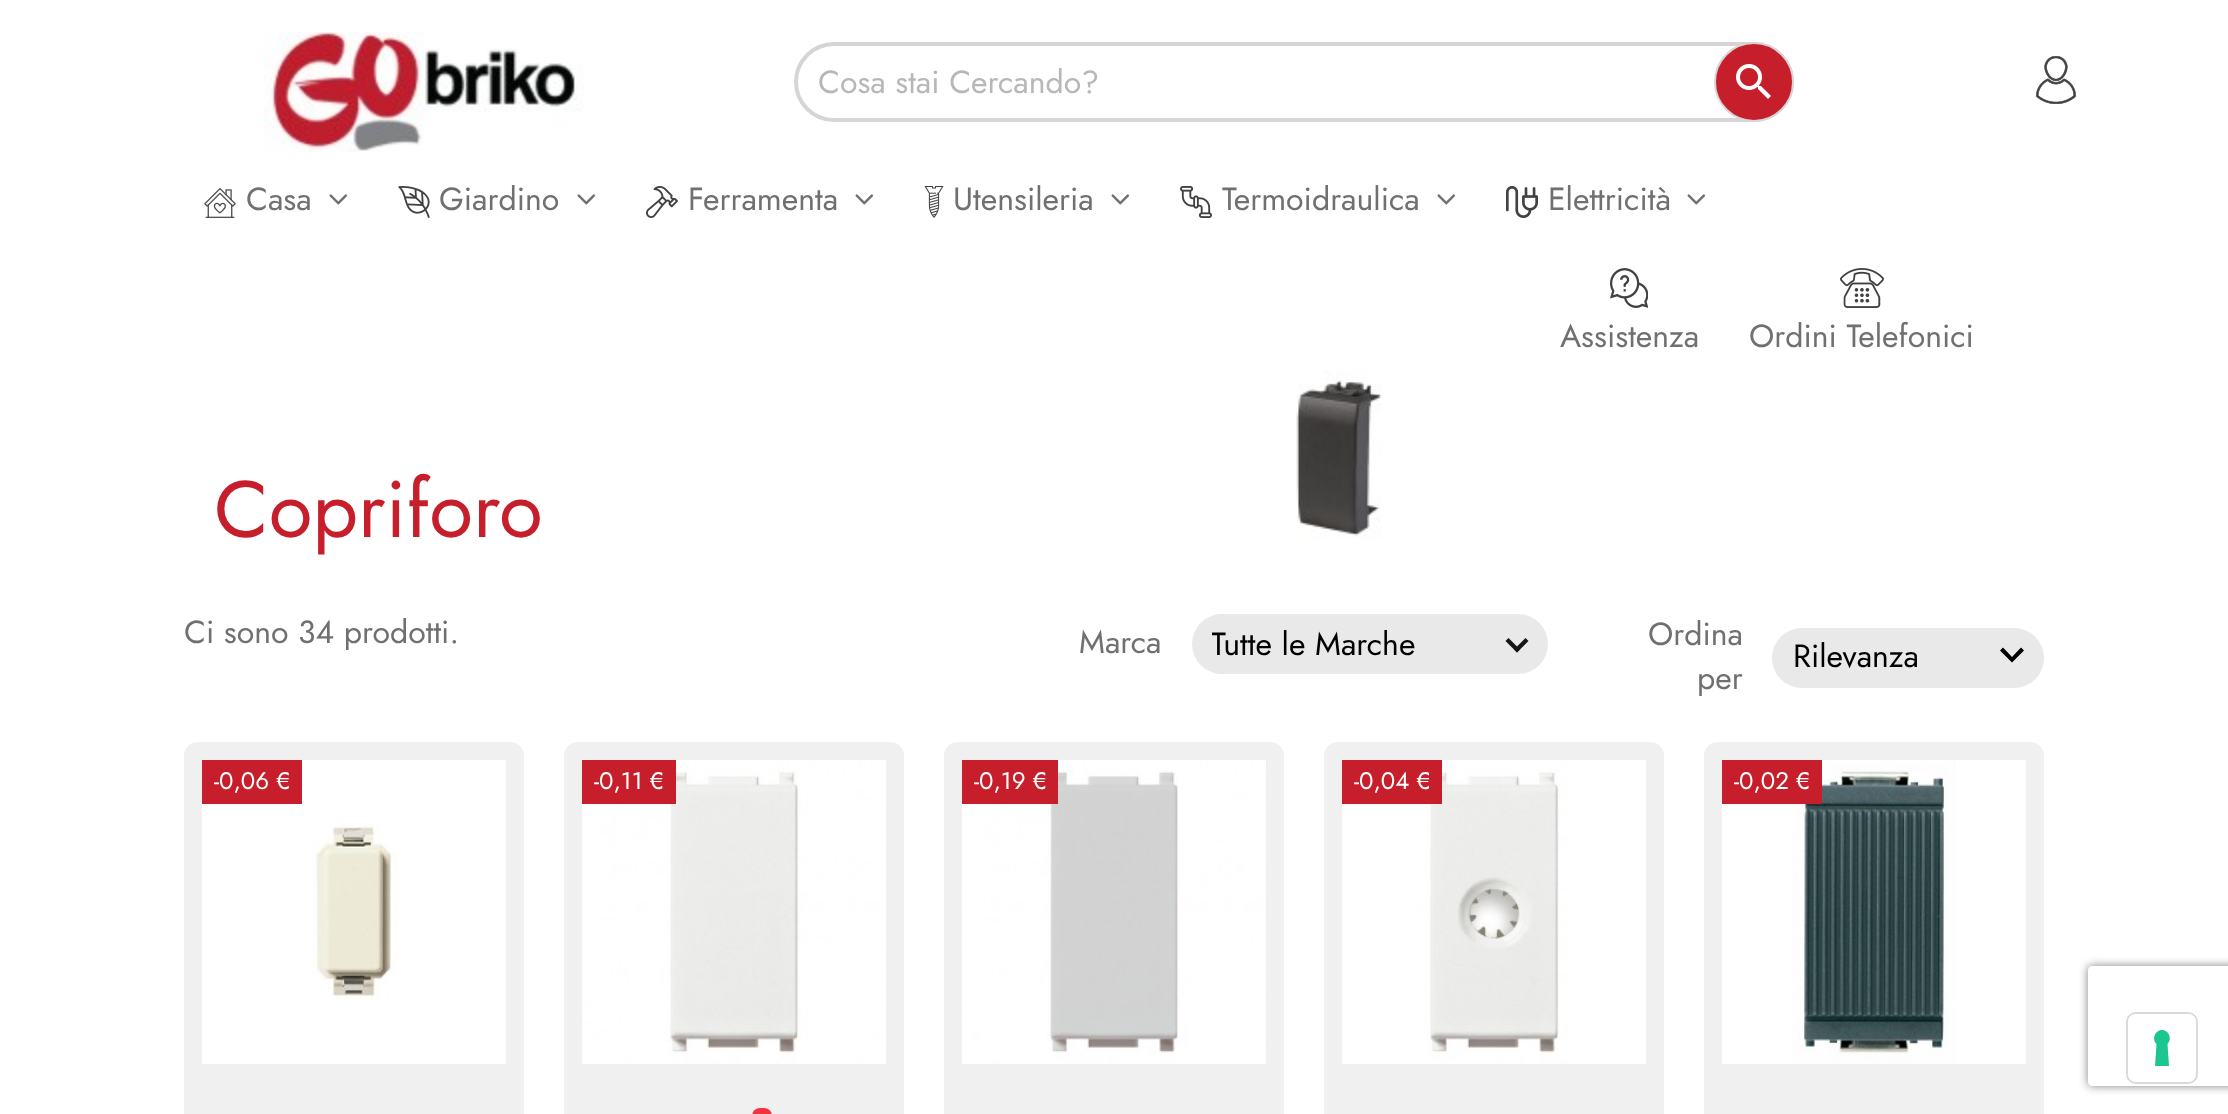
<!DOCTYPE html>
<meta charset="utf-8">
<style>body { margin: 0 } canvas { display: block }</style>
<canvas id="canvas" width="2228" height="1114"></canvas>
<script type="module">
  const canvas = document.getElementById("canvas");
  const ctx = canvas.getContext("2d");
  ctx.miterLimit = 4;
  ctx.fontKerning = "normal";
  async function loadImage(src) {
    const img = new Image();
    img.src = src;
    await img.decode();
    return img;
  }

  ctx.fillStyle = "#ffffff";
  ctx.fillRect(0, 0, 2228, 1114);
  ctx.drawImage(await loadImage("img1.png"), 264, 32, 320, 120);
  ctx.beginPath();
  ctx.roundRect(796, 44, 996, 76, 38);
  ctx.strokeStyle = "#d6d4d4";
  ctx.lineWidth = 4;
  ctx.stroke();
  ctx.font = "32px Jost";
  ctx.fillStyle = "#b7b7b7";
  ctx.fillText("Cosa stai Cercando?", 818, 93);
  ctx.fillStyle = "#c61f2b";
  ctx.beginPath();
  ctx.arc(1754, 82, 39, 0, Math.PI * 2);
  ctx.fill();
  ctx.lineWidth = 2;
  ctx.stroke();
  ctx.drawImage(await loadImage("img2.png"), 1736, 64, 35, 35);
  ctx.drawImage(await loadImage("img3.png"), 2036, 56, 40, 48);
  ctx.drawImage(await loadImage("img4.png"), 204, 188, 32, 30);
  ctx.fillStyle = "#707070";
  ctx.fillText("Casa", 246, 210);
  ctx.drawImage(await loadImage("img5.png"), 329, 194, 19, 11);
  ctx.drawImage(await loadImage("img6.png"), 398, 186, 32, 32);
  ctx.fillText("Giardino", 439, 210);
  ctx.drawImage(await loadImage("img5.png"), 577, 194, 19, 11);
  ctx.drawImage(await loadImage("img7.png"), 646, 186, 32, 32);
  ctx.fillText("Ferramenta", 688, 210);
  ctx.drawImage(await loadImage("img5.png"), 855, 194, 19, 11);
  ctx.drawImage(await loadImage("img8.png"), 924, 186, 20, 32);
  ctx.fillText("Utensileria", 953, 210);
  ctx.drawImage(await loadImage("img5.png"), 1111, 194, 19, 11);
  ctx.drawImage(await loadImage("img9.png"), 1180, 186, 32, 32);
  ctx.fillText("Termoidraulica", 1222, 210);
  ctx.drawImage(await loadImage("img5.png"), 1437, 194, 19, 11);
  ctx.drawImage(await loadImage("img10.png"), 1506, 186, 32, 32);
  ctx.fillText("Elettricità", 1548, 210);
  ctx.drawImage(await loadImage("img5.png"), 1687, 194, 19, 11);
  ctx.drawImage(await loadImage("img11.png"), 1610, 268, 38, 40);
  ctx.fillText("Assistenza", 1560, 347);
  ctx.drawImage(await loadImage("img12.png"), 1840, 268, 44, 40);
  ctx.fillText("Ordini Telefonici", 1749, 347);
  ctx.font = "80px Jost";
  ctx.fillStyle = "#c61f2b";
  ctx.fillText("Copriforo", 214, 537);
  ctx.drawImage(await loadImage("img13.png"), 1296, 370, 86, 169);
  ctx.font = "32px Jost";
  ctx.fillStyle = "#707070";
  ctx.fillText("Ci sono 34 prodotti.", 184, 643);
  ctx.fillStyle = "#e9e9e9";
  ctx.beginPath();
  ctx.roundRect(1192, 614, 356, 60, 30);
  ctx.fill();
  ctx.fillStyle = "#707070";
  ctx.fillText("Marca", 1079, 653);
  ctx.save();
  ctx.beginPath();
  ctx.rect(1212, 624, 322, 44);
  ctx.clip();
  ctx.fillStyle = "#000000";
  ctx.fillText("Tutte le Marche", 1211, 655);
  ctx.restore();
  ctx.fillStyle = "#161616";
  ctx.beginPath();
  ctx.moveTo(1517, 652.5);
  ctx.lineTo(1505.5, 641);
  ctx.lineTo(1508.5, 638);
  ctx.lineTo(1520, 649.5);
  ctx.closePath();
  ctx.fill();
  ctx.beginPath();
  ctx.moveTo(1517, 652.5);
  ctx.lineTo(1514, 649.5);
  ctx.lineTo(1525.5, 638);
  ctx.lineTo(1528.5, 641);
  ctx.closePath();
  ctx.fill();
  ctx.fillStyle = "#707070";
  ctx.fillText("Ordina", 1648, 645);
  ctx.fillText("per", 1697, 689);
  ctx.fillStyle = "#e9e9e9";
  ctx.beginPath();
  ctx.roundRect(1772, 628, 272, 60, 30);
  ctx.fill();
  ctx.fillStyle = "#000000";
  ctx.fillText("Rilevanza", 1793, 667);
  ctx.beginPath();
  ctx.moveTo(2003, 647.5);
  ctx.lineTo(2012, 657);
  ctx.lineTo(2021, 647.5);
  ctx.lineTo(2024, 650.5);
  ctx.lineTo(2012, 662.5);
  ctx.lineTo(2000, 650.5);
  ctx.closePath();
  ctx.fill();
  ctx.fillStyle = "#f0f0f0";
  ctx.beginPath();
  ctx.roundRect(184, 742, 340, 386, 14);
  ctx.fill();
  ctx.drawImage(await loadImage("img14.png"), 202, 760, 304, 304);
  ctx.fillStyle = "#c61f2b";
  ctx.fillRect(202, 760, 100, 44);
  ctx.font = "24px Jost";
  ctx.fillStyle = "#ffffff";
  ctx.fillText("-0,06 €", 214, 789);
  ctx.fillStyle = "#f0f0f0";
  ctx.beginPath();
  ctx.roundRect(564, 742, 340, 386, 14);
  ctx.fill();
  ctx.drawImage(await loadImage("img15.png"), 582, 760, 304, 304);
  ctx.fillStyle = "#c61f2b";
  ctx.fillRect(582, 760, 94, 44);
  ctx.fillStyle = "#ffffff";
  ctx.fillText("-0,11 €", 594, 789);
  ctx.fillStyle = "#f13340";
  ctx.beginPath();
  ctx.roundRect(752, 1108, 20, 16, 10);
  ctx.fill();
  ctx.fillStyle = "#f0f0f0";
  ctx.beginPath();
  ctx.roundRect(944, 742, 340, 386, 14);
  ctx.fill();
  ctx.drawImage(await loadImage("img16.png"), 962, 760, 304, 304);
  ctx.fillStyle = "#c61f2b";
  ctx.fillRect(962, 760, 96, 44);
  ctx.fillStyle = "#ffffff";
  ctx.fillText("-0,19 €", 974, 789);
  ctx.fillStyle = "#f0f0f0";
  ctx.beginPath();
  ctx.roundRect(1324, 742, 340, 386, 14);
  ctx.fill();
  ctx.drawImage(await loadImage("img17.png"), 1342, 760, 304, 304);
  ctx.fillStyle = "#c61f2b";
  ctx.fillRect(1342, 760, 100, 44);
  ctx.fillStyle = "#ffffff";
  ctx.fillText("-0,04 €", 1354, 789);
  ctx.fillStyle = "#f0f0f0";
  ctx.beginPath();
  ctx.roundRect(1704, 742, 340, 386, 14);
  ctx.fill();
  ctx.drawImage(await loadImage("img18.png"), 1722, 760, 304, 304);
  ctx.fillStyle = "#c61f2b";
  ctx.fillRect(1722, 760, 100, 44);
  ctx.fillStyle = "#ffffff";
  ctx.fillText("-0,02 €", 1734, 789);
  ctx.save();
  ctx.beginPath();
  ctx.moveTo(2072, 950);
  ctx.lineTo(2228, 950);
  ctx.lineTo(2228, 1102);
  ctx.lineTo(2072, 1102);
  ctx.closePath();
  ctx.moveTo(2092, 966);
  ctx.lineTo(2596, 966);
  ctx.bezierCurveTo(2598, 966, 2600, 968, 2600, 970);
  ctx.lineTo(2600, 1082);
  ctx.bezierCurveTo(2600, 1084, 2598, 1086, 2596, 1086);
  ctx.lineTo(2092, 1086);
  ctx.bezierCurveTo(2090, 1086, 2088, 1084, 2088, 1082);
  ctx.lineTo(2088, 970);
  ctx.bezierCurveTo(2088, 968, 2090, 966, 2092, 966);
  ctx.closePath();
  ctx.clip("evenodd");
  ctx.fillStyle = "#808080";
  ctx.filter = "blur(5px)";
  ctx.beginPath();
  ctx.roundRect(2088, 966, 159, 120, 4);
  ctx.fill();
  ctx.filter = "none";
  ctx.restore();
  ctx.beginPath();
  ctx.roundRect(2127, 1013, 70, 70, 9);
  ctx.strokeStyle = "#d9d9d9";
  ctx.stroke();
  ctx.beginPath();
  ctx.roundRect(2128, 1014, 68, 68, 8);
  ctx.fill();
  ctx.fillStyle = "#1cc691";
  ctx.beginPath();
  ctx.moveTo(2162, 1030);
  ctx.bezierCurveTo(2169, 1030, 2172.5, 1039.5, 2167.5, 1044);
  ctx.lineTo(2169, 1066);
  ctx.lineTo(2155, 1066);
  ctx.lineTo(2156.5, 1044);
  ctx.bezierCurveTo(2151.5, 1039.5, 2155, 1030, 2162, 1030);
  ctx.closePath();
  ctx.fill("evenodd");
</script>
